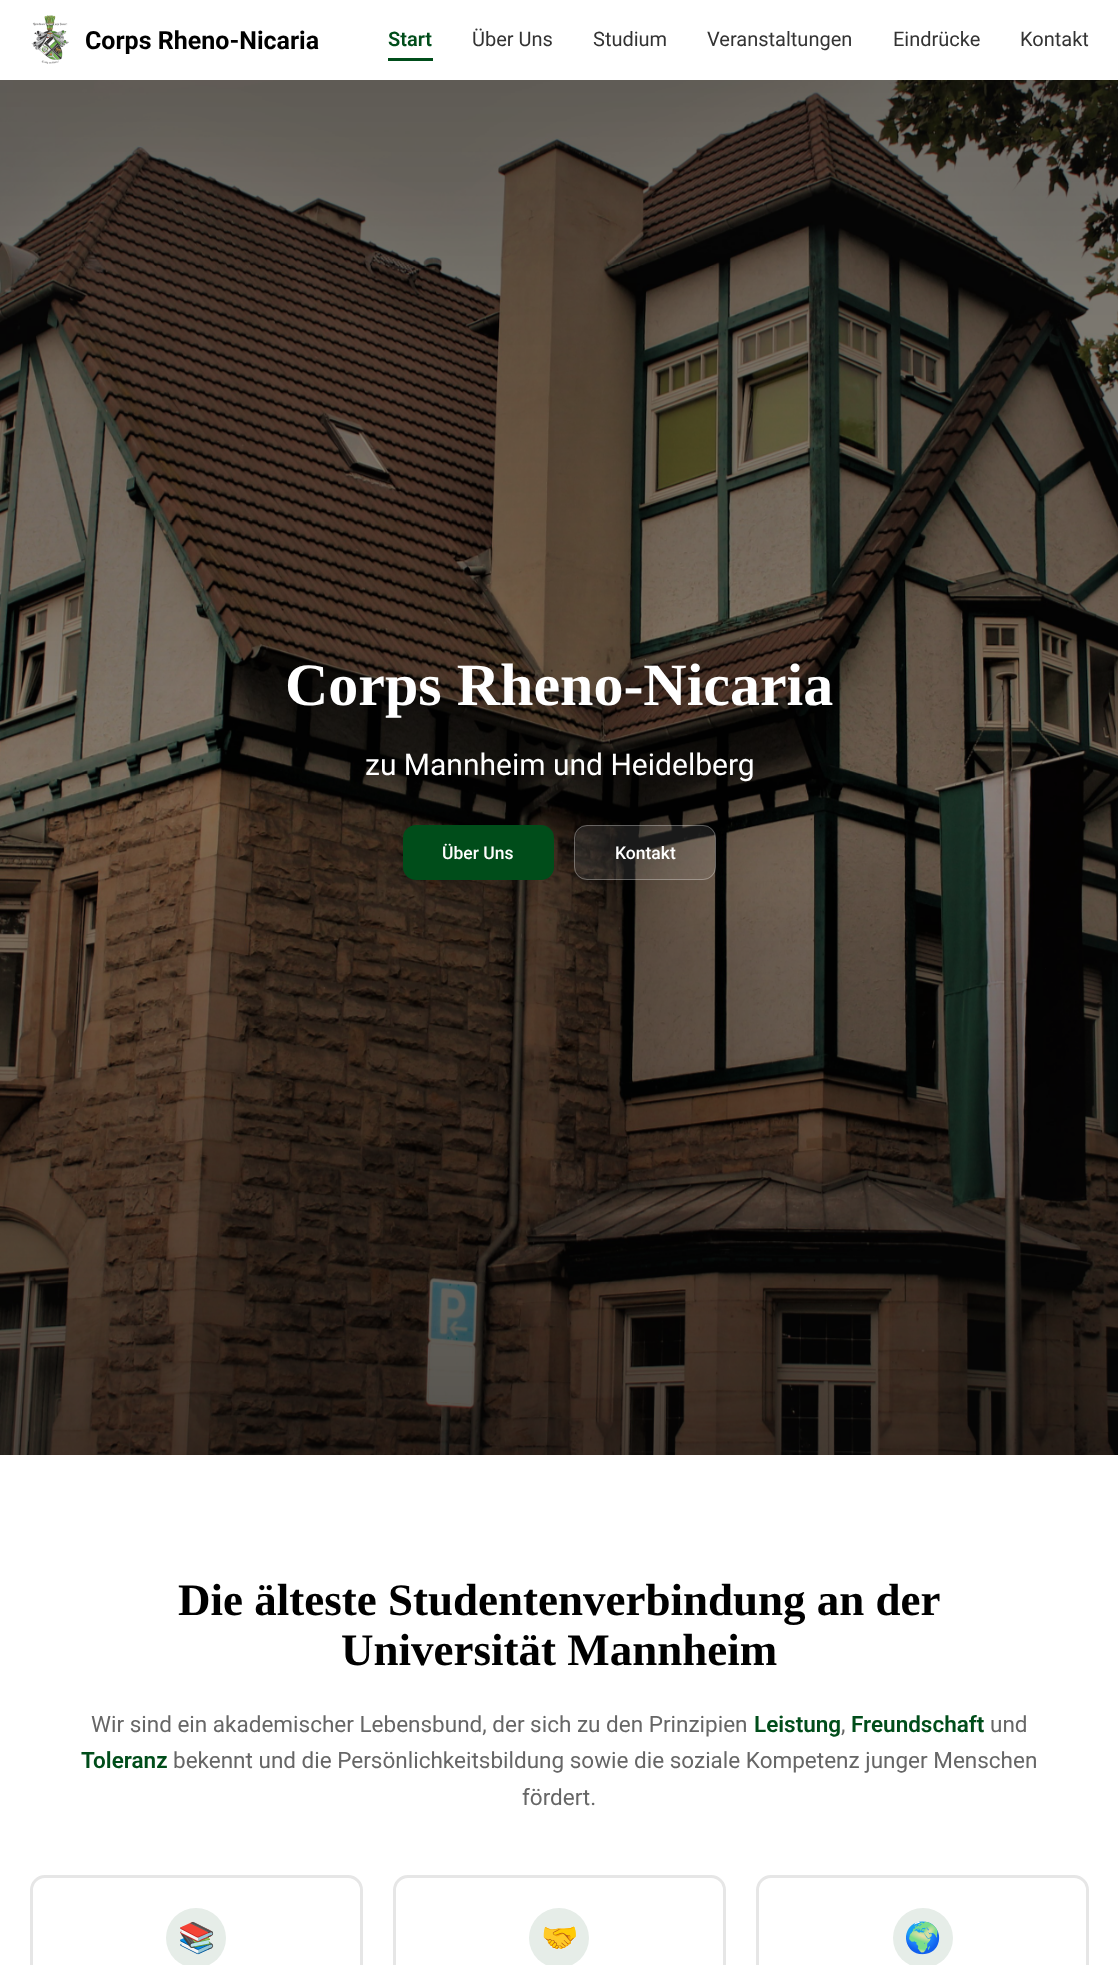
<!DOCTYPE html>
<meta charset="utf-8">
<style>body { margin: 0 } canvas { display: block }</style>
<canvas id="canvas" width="1118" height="1965"></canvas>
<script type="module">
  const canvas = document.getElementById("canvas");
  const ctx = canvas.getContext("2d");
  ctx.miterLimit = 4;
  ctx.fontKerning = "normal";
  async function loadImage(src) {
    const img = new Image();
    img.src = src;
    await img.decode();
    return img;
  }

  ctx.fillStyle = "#ffffff";
  ctx.fillRect(0, 0, 1118, 1965);
  ctx.drawImage(await loadImage("img1.png"), 31, 15, 38, 49);
  ctx.font = "bold 25px Roboto";
  ctx.fillStyle = "#000000";
  ctx.fillText("Corps Rheno-Nicaria", 85, 49);
  ctx.font = "600 20px Roboto";
  ctx.fillStyle = "#004d1a";
  ctx.fillText("Start", 388, 46);
  ctx.fillRect(388, 58, 45, 3);
  ctx.font = "20px Roboto";
  ctx.fillStyle = "#333333";
  ctx.fillText("Über Uns", 472, 46);
  ctx.fillText("Studium", 593, 46);
  ctx.fillText("Veranstaltungen", 707, 46);
  ctx.fillText("Eindrücke", 893, 46);
  ctx.fillText("Kontakt", 1020, 46);
  ctx.drawImage(await loadImage("img2.png"), 0, 80, 1118, 1375);
  ctx.font = "bold 60px Liberation Serif";
  ctx.fillStyle = "#ffffff";
  ctx.fillText("Corps Rheno-Nicaria", 285, 705);
  ctx.font = "30px Roboto";
  ctx.fillText("zu Mannheim und Heidelberg", 365, 775);
  ctx.fillStyle = "#004d1a";
  ctx.beginPath();
  ctx.roundRect(403, 825, 151, 55, 13);
  ctx.fill();
  ctx.font = "500 17.5px Roboto";
  ctx.fillStyle = "#ffffff";
  ctx.fillText("Über Uns", 442, 859);
  ctx.fillStyle = "rgba(255, 255, 255, 0.1)";
  ctx.beginPath();
  ctx.roundRect(574, 825, 142, 55, 13);
  ctx.fill();
  ctx.beginPath();
  ctx.roundRect(574.5, 825.5, 141, 54, 12.5);
  ctx.strokeStyle = "rgba(255, 255, 255, 0.3)";
  ctx.stroke();
  ctx.fillStyle = "#ffffff";
  ctx.fillText("Kontakt", 615, 859);
  ctx.font = "bold 45px Liberation Serif";
  ctx.fillStyle = "#000000";
  ctx.fillText("Die älteste Studentenverbindung an der", 178, 1615);
  ctx.fillText("Universität Mannheim", 341, 1665);
  ctx.font = "22.5px Roboto";
  ctx.fillStyle = "#666666";
  ctx.fillText("Wir sind ein akademischer Lebensbund, der sich zu den Prinzipien", 91, 1732);
  ctx.font = "600 22.5px Roboto";
  ctx.fillStyle = "#004d1a";
  ctx.fillText("Leistung", 754, 1732);
  ctx.font = "22.5px Roboto";
  ctx.fillStyle = "#666666";
  ctx.fillText(",", 841, 1732);
  ctx.font = "600 22.5px Roboto";
  ctx.fillStyle = "#004d1a";
  ctx.fillText("Freundschaft", 851, 1732);
  ctx.font = "22.5px Roboto";
  ctx.fillStyle = "#666666";
  ctx.fillText("und", 990, 1732);
  ctx.font = "600 22.5px Roboto";
  ctx.fillStyle = "#004d1a";
  ctx.fillText("Toleranz", 81, 1768);
  ctx.font = "22.5px Roboto";
  ctx.fillStyle = "#666666";
  ctx.fillText("bekennt und die Persönlichkeitsbildung sowie die soziale Kompetenz junger Menschen", 173, 1768);
  ctx.fillText("fördert.", 522, 1805);
  ctx.beginPath();
  ctx.roundRect(31.5, 1876.5, 330, 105, 13.5);
  ctx.strokeStyle = "#e6e6e6";
  ctx.lineWidth = 3;
  ctx.stroke();
  ctx.fillStyle = "#e6ede8";
  ctx.beginPath();
  ctx.arc(196, 1938, 30, 0, Math.PI * 2);
  ctx.fill();
  ctx.font = "30px Noto Color Emoji";
  ctx.fillStyle = "#000000";
  ctx.fillText("📚", 178, 1948);
  ctx.beginPath();
  ctx.roundRect(394.5, 1876.5, 330, 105, 13.5);
  ctx.stroke();
  ctx.fillStyle = "#e6ede8";
  ctx.beginPath();
  ctx.arc(559, 1938, 30, 0, Math.PI * 2);
  ctx.fill();
  ctx.fillStyle = "#000000";
  ctx.fillText("🤝", 541, 1948);
  ctx.beginPath();
  ctx.roundRect(757.5, 1876.5, 330, 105, 13.5);
  ctx.stroke();
  ctx.fillStyle = "#e6ede8";
  ctx.beginPath();
  ctx.arc(923, 1938, 30, 0, Math.PI * 2);
  ctx.fill();
  ctx.fillStyle = "#000000";
  ctx.fillText("🌍", 904, 1948);
</script>
